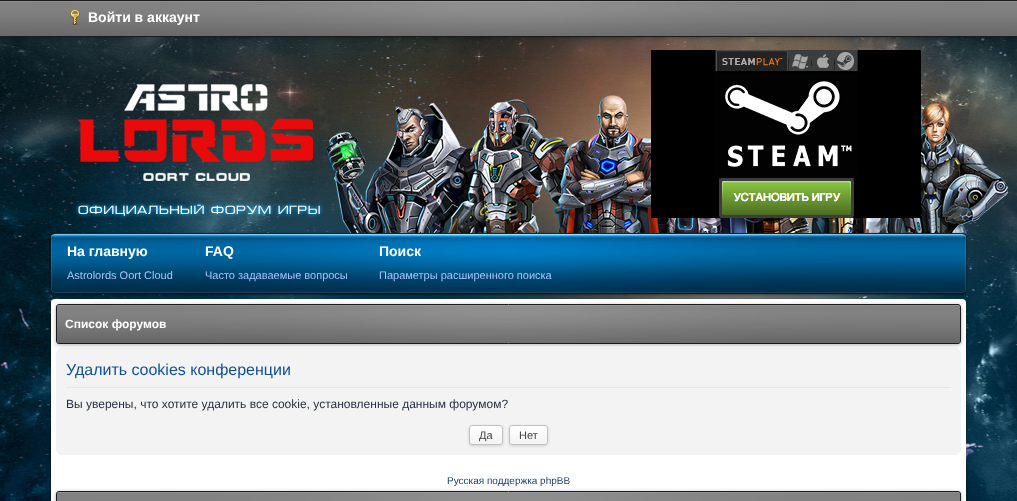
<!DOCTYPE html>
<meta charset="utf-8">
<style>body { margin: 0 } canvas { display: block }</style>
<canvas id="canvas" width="1017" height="501"></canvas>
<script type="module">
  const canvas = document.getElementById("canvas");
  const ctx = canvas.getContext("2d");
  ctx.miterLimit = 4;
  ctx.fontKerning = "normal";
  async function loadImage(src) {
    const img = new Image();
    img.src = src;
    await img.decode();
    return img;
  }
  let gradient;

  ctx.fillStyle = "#ffffff";
  ctx.fillRect(0, 0, 1017, 501);
  ctx.drawImage(await loadImage("img1.png"), 0, 37, 1017, 464);
  ctx.fillStyle = "rgba(0, 0, 0, 0.3)";
  ctx.filter = "blur(2px)";
  ctx.beginPath();
  ctx.rect(0, 1, 1017, 37);
  ctx.fill();
  ctx.filter = "none";
  ctx.drawImage(await loadImage("img2.png"), 0, 1, 1017, 35);
  ctx.fillStyle = "rgba(255, 255, 255, 0.13)";
  ctx.fillRect(0, 1, 1017, 1);
  ctx.fillStyle = "#1b1b1b";
  ctx.fillRect(0, 0, 1017, 1);
  ctx.fillRect(0, 36, 1017, 1);
  ctx.drawImage(await loadImage("img3.png"), 70, 9, 10, 16);
  ctx.font = "bold 14px Liberation Sans";
  ctx.fillStyle = "#ffffff";
  ctx.fillText("Войти в аккаунт", 88, 22);
  ctx.drawImage(await loadImage("img5.png"), 74, 84, 934, 149);
  ctx.drawImage(await loadImage("img4.png"), 651, 50, 270, 168);
  ctx.fillStyle = "rgba(0, 0, 0, 0.3)";
  ctx.filter = "blur(2px)";
  ctx.beginPath();
  ctx.roundRect(51, 300, 915, 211, 4);
  ctx.fill();
  ctx.filter = "none";
  ctx.fillStyle = "#ffffff";
  ctx.beginPath();
  ctx.roundRect(51, 299, 915, 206, 4);
  ctx.fill();
  ctx.fillStyle = "rgba(0, 0, 0, 0.5)";
  ctx.filter = "blur(1.5px)";
  ctx.beginPath();
  ctx.roundRect(51, 234, 915, 61, 4);
  ctx.fill();
  ctx.filter = "none";
  ctx.drawImage(await loadImage("img6.png"), 51, 234, 915, 59);
  ctx.beginPath();
  ctx.moveTo(55, 234.5);
  ctx.lineTo(962, 234.5);
  ctx.bezierCurveTo(964, 234.5, 965.5, 235.5, 965.5, 237);
  ctx.lineTo(965.5, 290);
  ctx.bezierCurveTo(965.5, 291.5, 964, 292.5, 962, 292.5);
  ctx.lineTo(55, 292.5);
  ctx.bezierCurveTo(53, 292.5, 51.5, 291.5, 51.5, 290);
  ctx.lineTo(51.5, 237);
  ctx.bezierCurveTo(51.5, 235.5, 53, 234.5, 55, 234.5);
  ctx.closePath();
  ctx.strokeStyle = "rgba(255, 255, 255, 0.1)";
  ctx.stroke();
  ctx.fillStyle = "rgba(255, 255, 255, 0.2)";
  ctx.beginPath();
  ctx.moveTo(55, 235);
  ctx.lineTo(962, 235);
  ctx.bezierCurveTo(964, 235, 966, 236, 966, 238);
  ctx.lineTo(966, 237);
  ctx.bezierCurveTo(966, 235, 964, 234, 962, 234);
  ctx.lineTo(55, 234);
  ctx.bezierCurveTo(53, 234, 51, 235, 51, 237);
  ctx.lineTo(51, 238);
  ctx.bezierCurveTo(51, 236, 53, 235, 55, 235);
  ctx.closePath();
  ctx.fill();
  ctx.fillStyle = "#0d283c";
  ctx.beginPath();
  ctx.moveTo(55, 233);
  ctx.bezierCurveTo(53, 233, 51, 235, 51, 237);
  ctx.bezierCurveTo(51, 235, 53, 234, 55, 234);
  ctx.lineTo(962, 234);
  ctx.bezierCurveTo(964, 234, 966, 235, 966, 237);
  ctx.bezierCurveTo(966, 235, 964, 233, 962, 233);
  ctx.closePath();
  ctx.fill();
  ctx.fillStyle = "#071827";
  ctx.beginPath();
  ctx.moveTo(962, 294);
  ctx.bezierCurveTo(964, 294, 966, 292, 966, 290);
  ctx.bezierCurveTo(966, 292, 964, 293, 962, 293);
  ctx.lineTo(55, 293);
  ctx.bezierCurveTo(53, 293, 51, 292, 51, 290);
  ctx.bezierCurveTo(51, 292, 53, 294, 55, 294);
  ctx.closePath();
  ctx.fill();
  ctx.fillStyle = "#ffffff";
  ctx.fillText("На главную", 67, 256);
  ctx.font = "11px Liberation Sans";
  ctx.fillStyle = "#a4c4ff";
  ctx.fillText("Astrolords Oort Cloud", 67, 279);
  ctx.font = "bold 14px Liberation Sans";
  ctx.fillStyle = "#ffffff";
  ctx.fillText("FAQ", 205, 256);
  ctx.font = "11px Liberation Sans";
  ctx.fillStyle = "#a4c4ff";
  ctx.fillText("Часто задаваемые вопросы", 205, 279);
  ctx.font = "bold 14px Liberation Sans";
  ctx.fillStyle = "#ffffff";
  ctx.fillText("Поиск", 379, 256);
  ctx.font = "11px Liberation Sans";
  ctx.fillStyle = "#a4c4ff";
  ctx.fillText("Параметры расширенного поиска", 379, 279);
  ctx.fillStyle = "#f3f3f3";
  ctx.fillRect(56, 348, 905, 107);
  ctx.drawImage(await loadImage("img8.png"), 56, 348, 4, 4);
  ctx.drawImage(await loadImage("img9.png"), 957, 348, 4, 4);
  ctx.fillStyle = "rgba(0, 0, 0, 0.3)";
  ctx.filter = "blur(2px)";
  ctx.beginPath();
  ctx.roundRect(56, 305, 905, 40, 3);
  ctx.fill();
  ctx.filter = "none";
  ctx.drawImage(await loadImage("img7.png"), 57, 305, 903, 38);
  ctx.fillStyle = "rgba(255, 255, 255, 0.13)";
  ctx.beginPath();
  ctx.moveTo(59, 306);
  ctx.lineTo(958, 306);
  ctx.bezierCurveTo(959, 306, 960, 307, 960, 308);
  ctx.lineTo(960, 307);
  ctx.bezierCurveTo(960, 306, 959, 305, 958, 305);
  ctx.lineTo(59, 305);
  ctx.bezierCurveTo(58, 305, 57, 306, 57, 307);
  ctx.lineTo(57, 308);
  ctx.bezierCurveTo(57, 307, 58, 306, 59, 306);
  ctx.closePath();
  ctx.fill();
  ctx.beginPath();
  ctx.roundRect(56.5, 304.5, 904, 39, 2.5);
  ctx.strokeStyle = "#1b1b1b";
  ctx.stroke();
  ctx.font = "bold 12px Liberation Sans";
  ctx.fillStyle = "#ffffff";
  ctx.fillText("Список форумов", 65, 328);
  ctx.fillStyle = "#e7e7e7";
  ctx.fillRect(66, 387, 885, 1);
  ctx.font = "16px Liberation Sans";
  ctx.fillStyle = "#115098";
  ctx.fillText("Удалить cookies конференции", 66, 375);
  ctx.font = "12px Liberation Sans";
  ctx.fillStyle = "#28313f";
  ctx.fillText("Вы уверены, что хотите удалить все cookie, установленные данным форумом?", 66, 408);
  ctx.fillStyle = "rgba(0, 0, 0, 0.15)";
  ctx.filter = "blur(1.5px)";
  ctx.beginPath();
  ctx.roundRect(469, 426, 34, 20, 3);
  ctx.fill();
  ctx.filter = "none";
  ctx.fillStyle = "#f4f4f4";
  ctx.beginPath();
  ctx.roundRect(469, 425, 34, 20, 3);
  ctx.fill();
  ctx.save();
  ctx.beginPath();
  ctx.roundRect(469, 425, 34, 20, 3);
  ctx.clip();
  gradient = ctx.createLinearGradient(486, 425, 486, 443);
  gradient.addColorStop(0, "#ffffff");
  gradient.addColorStop(1, "#f4f4f4");
  ctx.fillStyle = gradient;
  ctx.beginPath();
  ctx.roundRect(469, 425, 34, 18, [3, 3, 0, 0]);
  ctx.fill();
  ctx.restore();
  ctx.beginPath();
  ctx.roundRect(469.5, 425.5, 33, 19, 2.5);
  ctx.strokeStyle = "#c0c2c3";
  ctx.stroke();
  ctx.font = "11px Liberation Sans";
  ctx.fillStyle = "#414141";
  ctx.fillText("Да", 479, 439);
  ctx.fillStyle = "rgba(0, 0, 0, 0.15)";
  ctx.filter = "blur(1.5px)";
  ctx.beginPath();
  ctx.roundRect(509, 426, 39, 20, 3);
  ctx.fill();
  ctx.filter = "none";
  ctx.fillStyle = "#f4f4f4";
  ctx.beginPath();
  ctx.roundRect(509, 425, 39, 20, 3);
  ctx.fill();
  ctx.save();
  ctx.beginPath();
  ctx.roundRect(509, 425, 39, 20, 3);
  ctx.clip();
  gradient = ctx.createLinearGradient(529, 425, 529, 443);
  gradient.addColorStop(0, "#ffffff");
  gradient.addColorStop(1, "#f4f4f4");
  ctx.fillStyle = gradient;
  ctx.beginPath();
  ctx.roundRect(509, 425, 39, 18, [3, 3, 0, 0]);
  ctx.fill();
  ctx.restore();
  ctx.beginPath();
  ctx.roundRect(509.5, 425.5, 38, 19, 2.5);
  ctx.stroke();
  ctx.fillStyle = "#414141";
  ctx.fillText("Нет", 519, 439);
  ctx.drawImage(await loadImage("img10.png"), 56, 451, 4, 4);
  ctx.drawImage(await loadImage("img11.png"), 957, 451, 4, 4);
  ctx.font = "10px Liberation Sans";
  ctx.fillStyle = "#1b406f";
  ctx.fillText("Русская поддержка phpBB", 447, 484);
  ctx.fillStyle = "rgba(0, 0, 0, 0.3)";
  ctx.filter = "blur(2px)";
  ctx.beginPath();
  ctx.roundRect(56, 492, 905, 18, 3);
  ctx.fill();
  ctx.filter = "none";
  ctx.drawImage(await loadImage("img12.png"), 57, 492, 903, 9);
  ctx.fillStyle = "rgba(255, 255, 255, 0.13)";
  ctx.beginPath();
  ctx.moveTo(59, 493);
  ctx.lineTo(958, 493);
  ctx.bezierCurveTo(959, 493, 960, 494, 960, 495);
  ctx.lineTo(960, 494);
  ctx.bezierCurveTo(960, 493, 959, 492, 958, 492);
  ctx.lineTo(59, 492);
  ctx.bezierCurveTo(58, 492, 57, 493, 57, 494);
  ctx.lineTo(57, 495);
  ctx.bezierCurveTo(57, 494, 58, 493, 59, 493);
  ctx.closePath();
  ctx.fill();
  ctx.beginPath();
  ctx.roundRect(56.5, 491.5, 904, 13, 2.5);
  ctx.strokeStyle = "#1b1b1b";
  ctx.stroke();
</script>
